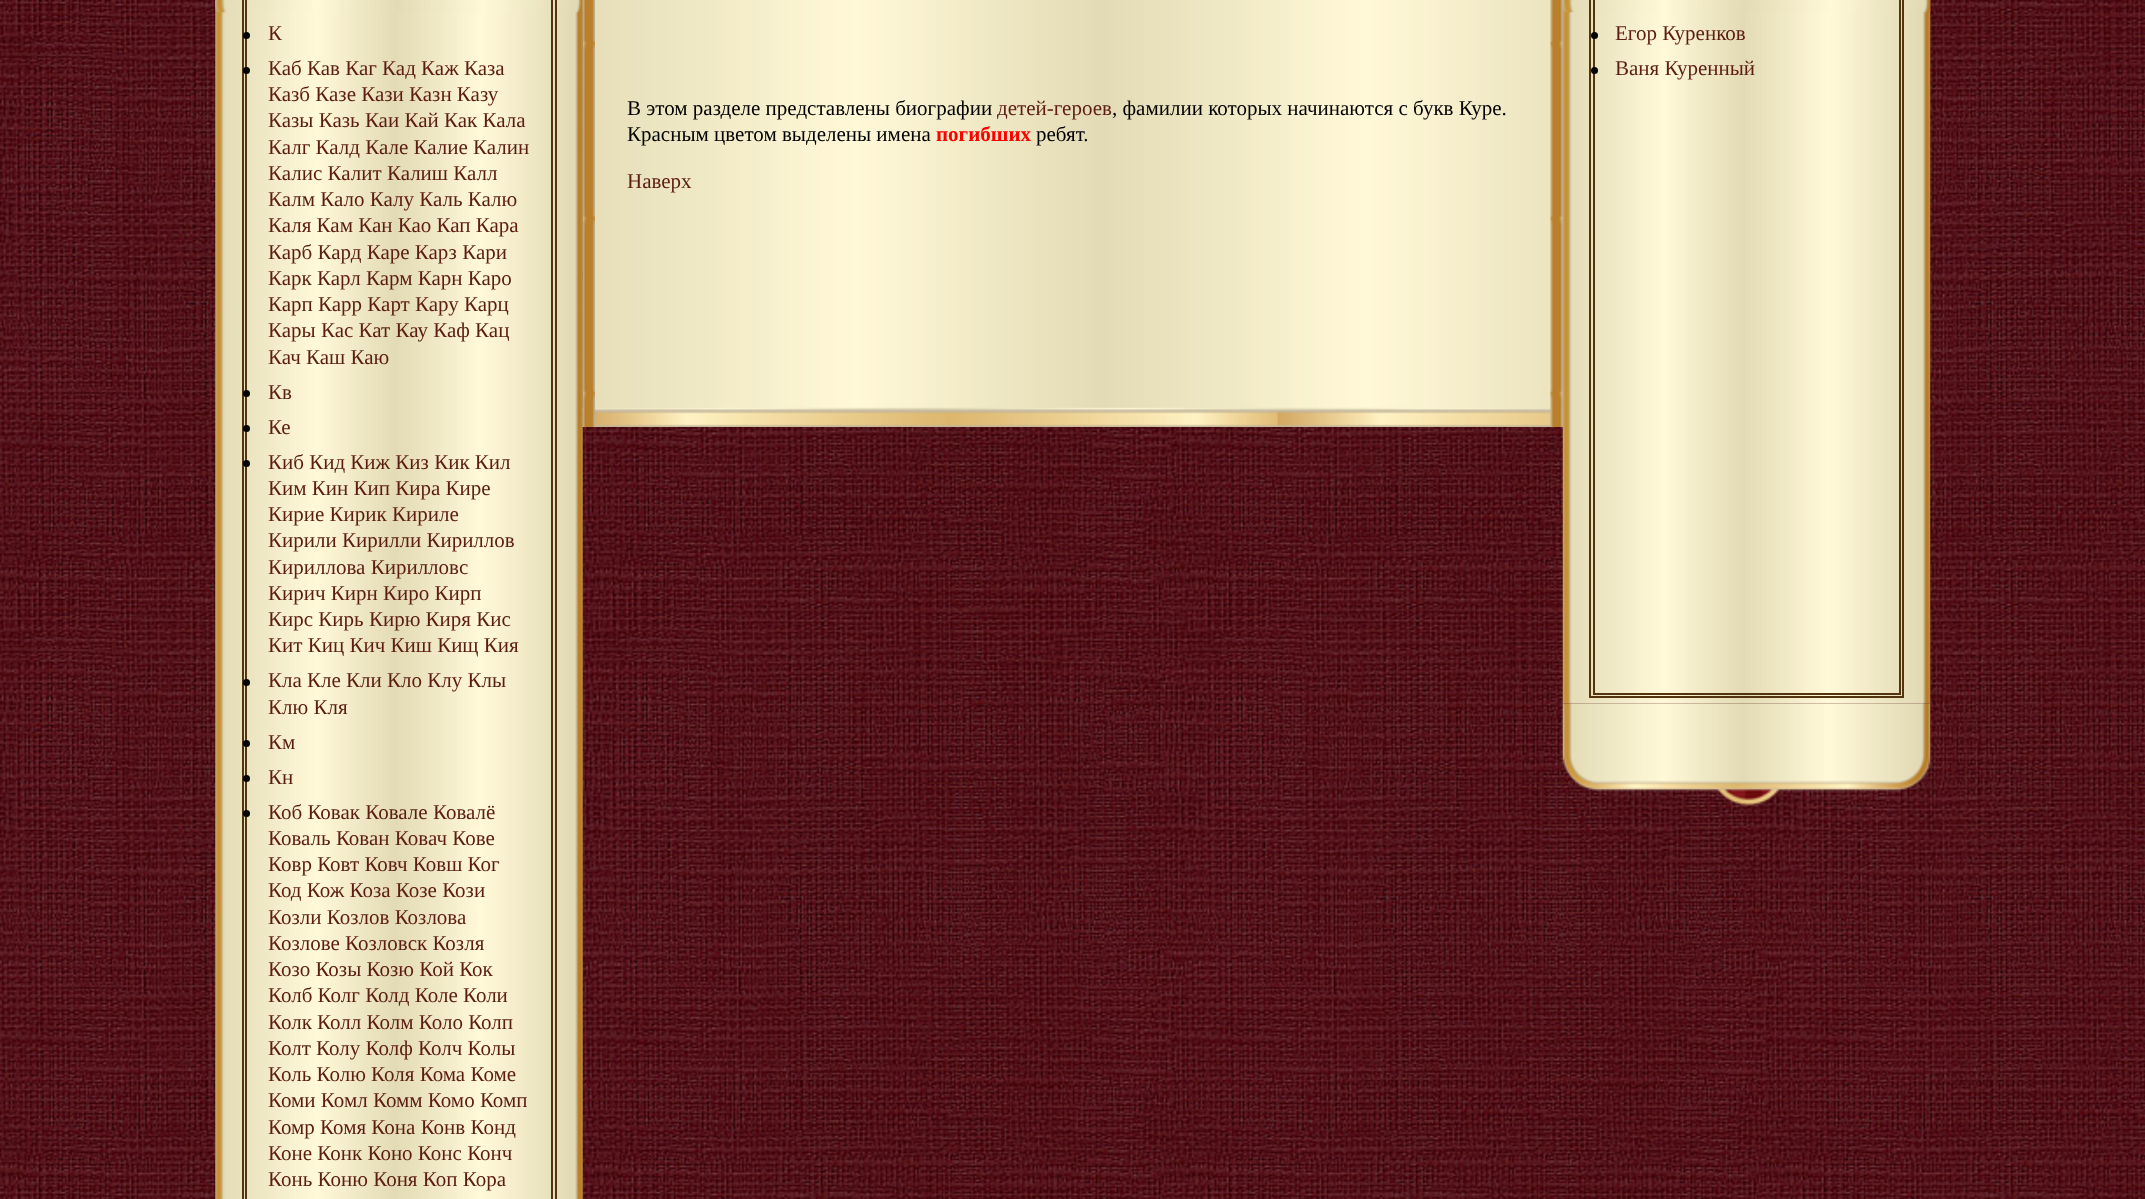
<!DOCTYPE html>
<meta charset="utf-8">
<style>body { margin: 0 } canvas { display: block }</style>
<canvas id="canvas" width="2145" height="1199"></canvas>
<script type="module">
  const canvas = document.getElementById("canvas");
  const ctx = canvas.getContext("2d");
  ctx.miterLimit = 4;
  ctx.fontKerning = "normal";
  async function loadImage(src) {
    const img = new Image();
    img.src = src;
    await img.decode();
    return img;
  }

  ctx.fillStyle = "#ffffff";
  ctx.fillRect(0, 0, 2145, 1199);
  ctx.drawImage(await loadImage("img1.png"), 0, 0, 2145, 1199);
  ctx.drawImage(await loadImage("img2.png"), 215, 0, 368, 1199);
  ctx.drawImage(await loadImage("img3.png"), 215, 0, 368, 13);
  ctx.strokeStyle = "#54330f";
  ctx.lineWidth = 2;
  ctx.strokeRect(243, -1, 313, 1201);
  ctx.strokeRect(246, -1, 306, 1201);
  ctx.fillStyle = "#000000";
  ctx.beginPath();
  ctx.arc(246.5, 35.5, 3.5, 0, Math.PI * 2);
  ctx.fill();
  ctx.font = "21px Liberation Serif";
  ctx.fillStyle = "#5c1d12";
  ctx.fillText("К", 268, 40);
  ctx.fillStyle = "#000000";
  ctx.beginPath();
  ctx.arc(246.5, 70.5, 3.5, 0, Math.PI * 2);
  ctx.fill();
  ctx.fillStyle = "#5c1d12";
  ctx.fillText("Каб Кав Каг Кад Каж Каза", 268, 75);
  ctx.fillText("Казб Казе Кази Казн Казу", 268, 101);
  ctx.fillText("Казы Казь Каи Кай Как Кала", 268, 127);
  ctx.fillText("Калг Калд Кале Калие Калин", 268, 154);
  ctx.fillText("Калис Калит Калиш Калл", 268, 180);
  ctx.fillText("Калм Кало Калу Каль Калю", 268, 206);
  ctx.fillText("Каля Кам Кан Као Кап Кара", 268, 232);
  ctx.fillText("Карб Кард Каре Карз Кари", 268, 259);
  ctx.fillText("Карк Карл Карм Карн Каро", 268, 285);
  ctx.fillText("Карп Карр Карт Кару Карц", 268, 311);
  ctx.fillText("Кары Кас Кат Кау Каф Кац", 268, 337);
  ctx.fillText("Кач Каш Каю", 268, 364);
  ctx.fillStyle = "#000000";
  ctx.beginPath();
  ctx.arc(246.5, 393.5, 3.5, 0, Math.PI * 2);
  ctx.fill();
  ctx.fillStyle = "#5c1d12";
  ctx.fillText("Кв", 268, 399);
  ctx.fillStyle = "#000000";
  ctx.beginPath();
  ctx.arc(246.5, 428.5, 3.5, 0, Math.PI * 2);
  ctx.fill();
  ctx.fillStyle = "#5c1d12";
  ctx.fillText("Ке", 268, 434);
  ctx.fillStyle = "#000000";
  ctx.beginPath();
  ctx.arc(246.5, 463.5, 3.5, 0, Math.PI * 2);
  ctx.fill();
  ctx.fillStyle = "#5c1d12";
  ctx.fillText("Киб Кид Киж Киз Кик Кил", 268, 469);
  ctx.fillText("Ким Кин Кип Кира Кире", 268, 495);
  ctx.fillText("Кирие Кирик Кириле", 268, 521);
  ctx.fillText("Кирили Кирилли Кириллов", 268, 547);
  ctx.fillText("Кириллова Кирилловс", 268, 574);
  ctx.fillText("Кирич Кирн Киро Кирп", 268, 600);
  ctx.fillText("Кирс Кирь Кирю Киря Кис", 268, 626);
  ctx.fillText("Кит Киц Кич Киш Кищ Кия", 268, 652);
  ctx.fillStyle = "#000000";
  ctx.beginPath();
  ctx.arc(246.5, 682.5, 3.5, 0, Math.PI * 2);
  ctx.fill();
  ctx.fillStyle = "#5c1d12";
  ctx.fillText("Кла Кле Кли Кло Клу Клы", 268, 687);
  ctx.fillText("Клю Кля", 268, 714);
  ctx.fillStyle = "#000000";
  ctx.beginPath();
  ctx.arc(246.5, 743.5, 3.5, 0, Math.PI * 2);
  ctx.fill();
  ctx.fillStyle = "#5c1d12";
  ctx.fillText("Км", 268, 749);
  ctx.fillStyle = "#000000";
  ctx.beginPath();
  ctx.arc(246.5, 778.5, 3.5, 0, Math.PI * 2);
  ctx.fill();
  ctx.fillStyle = "#5c1d12";
  ctx.fillText("Кн", 268, 784);
  ctx.fillStyle = "#000000";
  ctx.beginPath();
  ctx.arc(246.5, 813.5, 3.5, 0, Math.PI * 2);
  ctx.fill();
  ctx.fillStyle = "#5c1d12";
  ctx.fillText("Коб Ковак Ковале Ковалё", 268, 819);
  ctx.fillText("Коваль Кован Ковач Кове", 268, 845);
  ctx.fillText("Ковр Ковт Ковч Ковш Ког", 268, 871);
  ctx.fillText("Код Кож Коза Козе Кози", 268, 897);
  ctx.fillText("Козли Козлов Козлова", 268, 924);
  ctx.fillText("Козлове Козловск Козля", 268, 950);
  ctx.fillText("Козо Козы Козю Кой Кок", 268, 976);
  ctx.fillText("Колб Колг Колд Коле Коли", 268, 1002);
  ctx.fillText("Колк Колл Колм Коло Колп", 268, 1029);
  ctx.fillText("Колт Колу Колф Колч Колы", 268, 1055);
  ctx.fillText("Коль Колю Коля Кома Коме", 268, 1081);
  ctx.fillText("Коми Комл Комм Комо Комп", 268, 1107);
  ctx.fillText("Комр Комя Кона Конв Конд", 268, 1134);
  ctx.fillText("Коне Конк Коно Конс Конч", 268, 1160);
  ctx.fillText("Конь Коню Коня Коп Кора", 268, 1186);
  ctx.drawImage(await loadImage("img4.png"), 1562, 0, 369, 704);
  ctx.drawImage(await loadImage("img5.png"), 1562, 0, 369, 13);
  ctx.strokeRect(1590, -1, 313, 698);
  ctx.strokeRect(1594, -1, 306, 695);
  ctx.fillStyle = "#000000";
  ctx.beginPath();
  ctx.arc(1594.5, 35.5, 3.5, 0, Math.PI * 2);
  ctx.fill();
  ctx.fillStyle = "#5c1d12";
  ctx.fillText("Егор Куренков", 1615, 40);
  ctx.fillStyle = "#000000";
  ctx.beginPath();
  ctx.arc(1594.5, 70.5, 3.5, 0, Math.PI * 2);
  ctx.fill();
  ctx.fillStyle = "#5c1d12";
  ctx.fillText("Ваня Куренный", 1615, 75);
  ctx.drawImage(await loadImage("img6.png"), 1562, 703, 369, 103);
  ctx.drawImage(await loadImage("img7.png"), 582, 0, 981, 427);
  ctx.drawImage(await loadImage("img8.png"), 582, 407, 981, 20);
  ctx.drawImage(await loadImage("img9.png"), 582, 0, 13, 427);
  ctx.drawImage(await loadImage("img10.png"), 1550, 0, 13, 427);
  ctx.fillStyle = "#000000";
  ctx.fillText("В этом разделе представлены биографии", 627, 115);
  ctx.fillStyle = "#5c1d12";
  ctx.fillText("детей-героев", 997, 115);
  ctx.fillStyle = "#000000";
  ctx.fillText(", фамилии которых начинаются с букв Куре.", 1112, 115);
  ctx.fillText("Красным цветом выделены имена", 627, 141);
  ctx.font = "bold 21px Liberation Serif";
  ctx.fillStyle = "#ff0000";
  ctx.fillText("погибших", 936, 141);
  ctx.font = "21px Liberation Serif";
  ctx.fillStyle = "#000000";
  ctx.fillText("ребят.", 1036, 141);
  ctx.fillStyle = "#5c1d12";
  ctx.fillText("Наверх", 627, 188);
</script>
